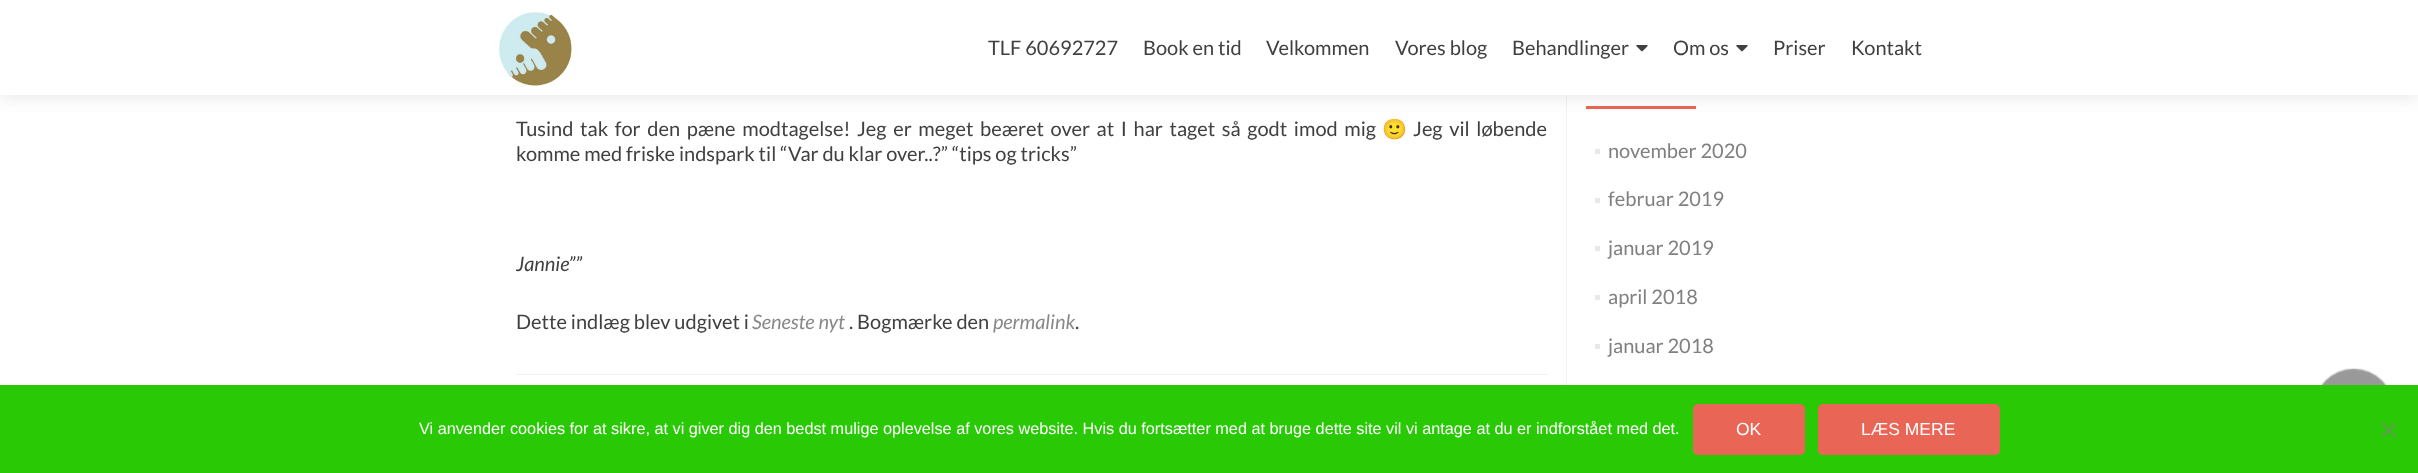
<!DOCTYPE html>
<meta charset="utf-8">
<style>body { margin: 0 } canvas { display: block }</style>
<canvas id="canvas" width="2418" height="473"></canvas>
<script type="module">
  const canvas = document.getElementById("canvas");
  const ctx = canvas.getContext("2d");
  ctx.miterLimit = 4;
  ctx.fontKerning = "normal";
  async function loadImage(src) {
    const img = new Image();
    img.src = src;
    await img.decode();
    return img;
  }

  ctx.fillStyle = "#ffffff";
  ctx.fillRect(0, 0, 2418, 473);
  ctx.fillStyle = "#f2f2f2";
  ctx.fillRect(1566, 95, 1, 290);
  ctx.fillStyle = "#e96656";
  ctx.fillRect(1586, 106, 110, 3);
  ctx.fillStyle = "rgba(50, 50, 50, 0.08)";
  ctx.filter = "blur(7px)";
  ctx.beginPath();
  ctx.rect(0, 6, 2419, 95);
  ctx.fill();
  ctx.filter = "none";
  ctx.fillStyle = "#ffffff";
  ctx.fillRect(0, 0, 2418, 95);
  ctx.drawImage(await loadImage("img1.png"), 498, 12, 75, 74);
  ctx.font = "20px Lato";
  ctx.fillStyle = "#404040";
  ctx.fillText("TLF 60692727", 988, 55);
  ctx.fillText("Book en tid", 1143, 55);
  ctx.fillText("Velkommen", 1266, 55);
  ctx.fillText("Vores blog", 1395, 55);
  ctx.fillText("Behandlinger", 1512, 55);
  ctx.drawImage(await loadImage("img2.png"), 1636, 45, 12, 7);
  ctx.fillText("Om os", 1673, 55);
  ctx.drawImage(await loadImage("img2.png"), 1736, 45, 12, 7);
  ctx.fillText("Priser", 1773, 55);
  ctx.fillText("Kontakt", 1851, 55);
  ctx.fillStyle = "#f2f2f2";
  ctx.fillRect(516, 374, 1032, 1);
  ctx.wordSpacing = "2.75px";
  ctx.fillStyle = "#404040";
  ctx.fillText("Tusind tak for den pæne modtagelse! Jeg er meget beæret over at I har taget så godt imod mig", 516, 136);
  ctx.wordSpacing = "0px";
  ctx.font = "20px Noto Color Emoji";
  ctx.fillText("🙂", 1382, 136);
  ctx.wordSpacing = "2.75px";
  ctx.font = "20px Lato";
  ctx.fillText("Jeg vil løbende", 1413, 136);
  ctx.wordSpacing = "0px";
  ctx.fillText("komme med friske indspark til “Var du klar over..?” “tips og tricks”", 516, 161);
  ctx.font = "italic 20px Lato";
  ctx.fillText("Jannie””", 516, 271);
  ctx.font = "20px Lato";
  ctx.fillText("Dette indlæg blev udgivet i", 516, 329);
  ctx.font = "italic 20px Lato";
  ctx.fillStyle = "#888888";
  ctx.fillText("Seneste nyt", 752, 329);
  ctx.font = "20px Lato";
  ctx.fillStyle = "#404040";
  ctx.fillText(". Bogmærke den", 849, 329);
  ctx.font = "italic 20px Lato";
  ctx.fillStyle = "#888888";
  ctx.fillText("permalink", 993, 329);
  ctx.font = "20px Lato";
  ctx.fillStyle = "#404040";
  ctx.fillText(".", 1075, 329);
  ctx.fillStyle = "#e9e9e9";
  ctx.fillRect(1595, 149, 5, 5);
  ctx.fillStyle = "#808080";
  ctx.fillText("november 2020", 1608, 158);
  ctx.fillStyle = "#e9e9e9";
  ctx.fillRect(1595, 198, 5, 5);
  ctx.fillStyle = "#808080";
  ctx.fillText("februar 2019", 1608, 206);
  ctx.fillStyle = "#e9e9e9";
  ctx.fillRect(1595, 246, 5, 5);
  ctx.fillStyle = "#808080";
  ctx.fillText("januar 2019", 1608, 255);
  ctx.fillStyle = "#e9e9e9";
  ctx.fillRect(1595, 295, 5, 5);
  ctx.fillStyle = "#808080";
  ctx.fillText("april 2018", 1608, 304);
  ctx.fillStyle = "#e9e9e9";
  ctx.fillRect(1595, 344, 5, 5);
  ctx.fillStyle = "#808080";
  ctx.fillText("januar 2018", 1608, 353);
  ctx.drawImage(await loadImage("img3.png"), 2321, 368, 66, 17);
  ctx.fillStyle = "#29c906";
  ctx.fillRect(0, 385, 2418, 88);
  ctx.font = "16.25px Liberation Sans";
  ctx.fillStyle = "#ffffff";
  ctx.fillText("Vi anvender cookies for at sikre, at vi giver dig den bedst mulige oplevelse af vores website. Hvis du fortsætter med at bruge dette site vil vi antage at du er indforstået med det.", 419, 434);
  ctx.fillStyle = "#e96656";
  ctx.beginPath();
  ctx.roundRect(1693, 404, 112, 51, 5);
  ctx.fill();
  ctx.font = "17.5px Liberation Sans";
  ctx.fillStyle = "#ffffff";
  ctx.fillText("OK", 1736, 435);
  ctx.fillStyle = "#e96656";
  ctx.beginPath();
  ctx.roundRect(1818, 404, 182, 51, 5);
  ctx.fill();
  ctx.fillStyle = "#ffffff";
  ctx.fillText("LÆS MERE", 1861, 435);
  ctx.fillStyle = "#55a543";
  ctx.beginPath();
  ctx.moveTo(2394.5, 422.5);
  ctx.lineTo(2396.5, 424.5);
  ctx.lineTo(2383, 437.5);
  ctx.lineTo(2381, 435.5);
  ctx.closePath();
  ctx.fill();
  ctx.beginPath();
  ctx.moveTo(2381, 424.5);
  ctx.lineTo(2383, 422.5);
  ctx.lineTo(2396.5, 435.5);
  ctx.lineTo(2394.5, 437.5);
  ctx.closePath();
  ctx.fill();
</script>
